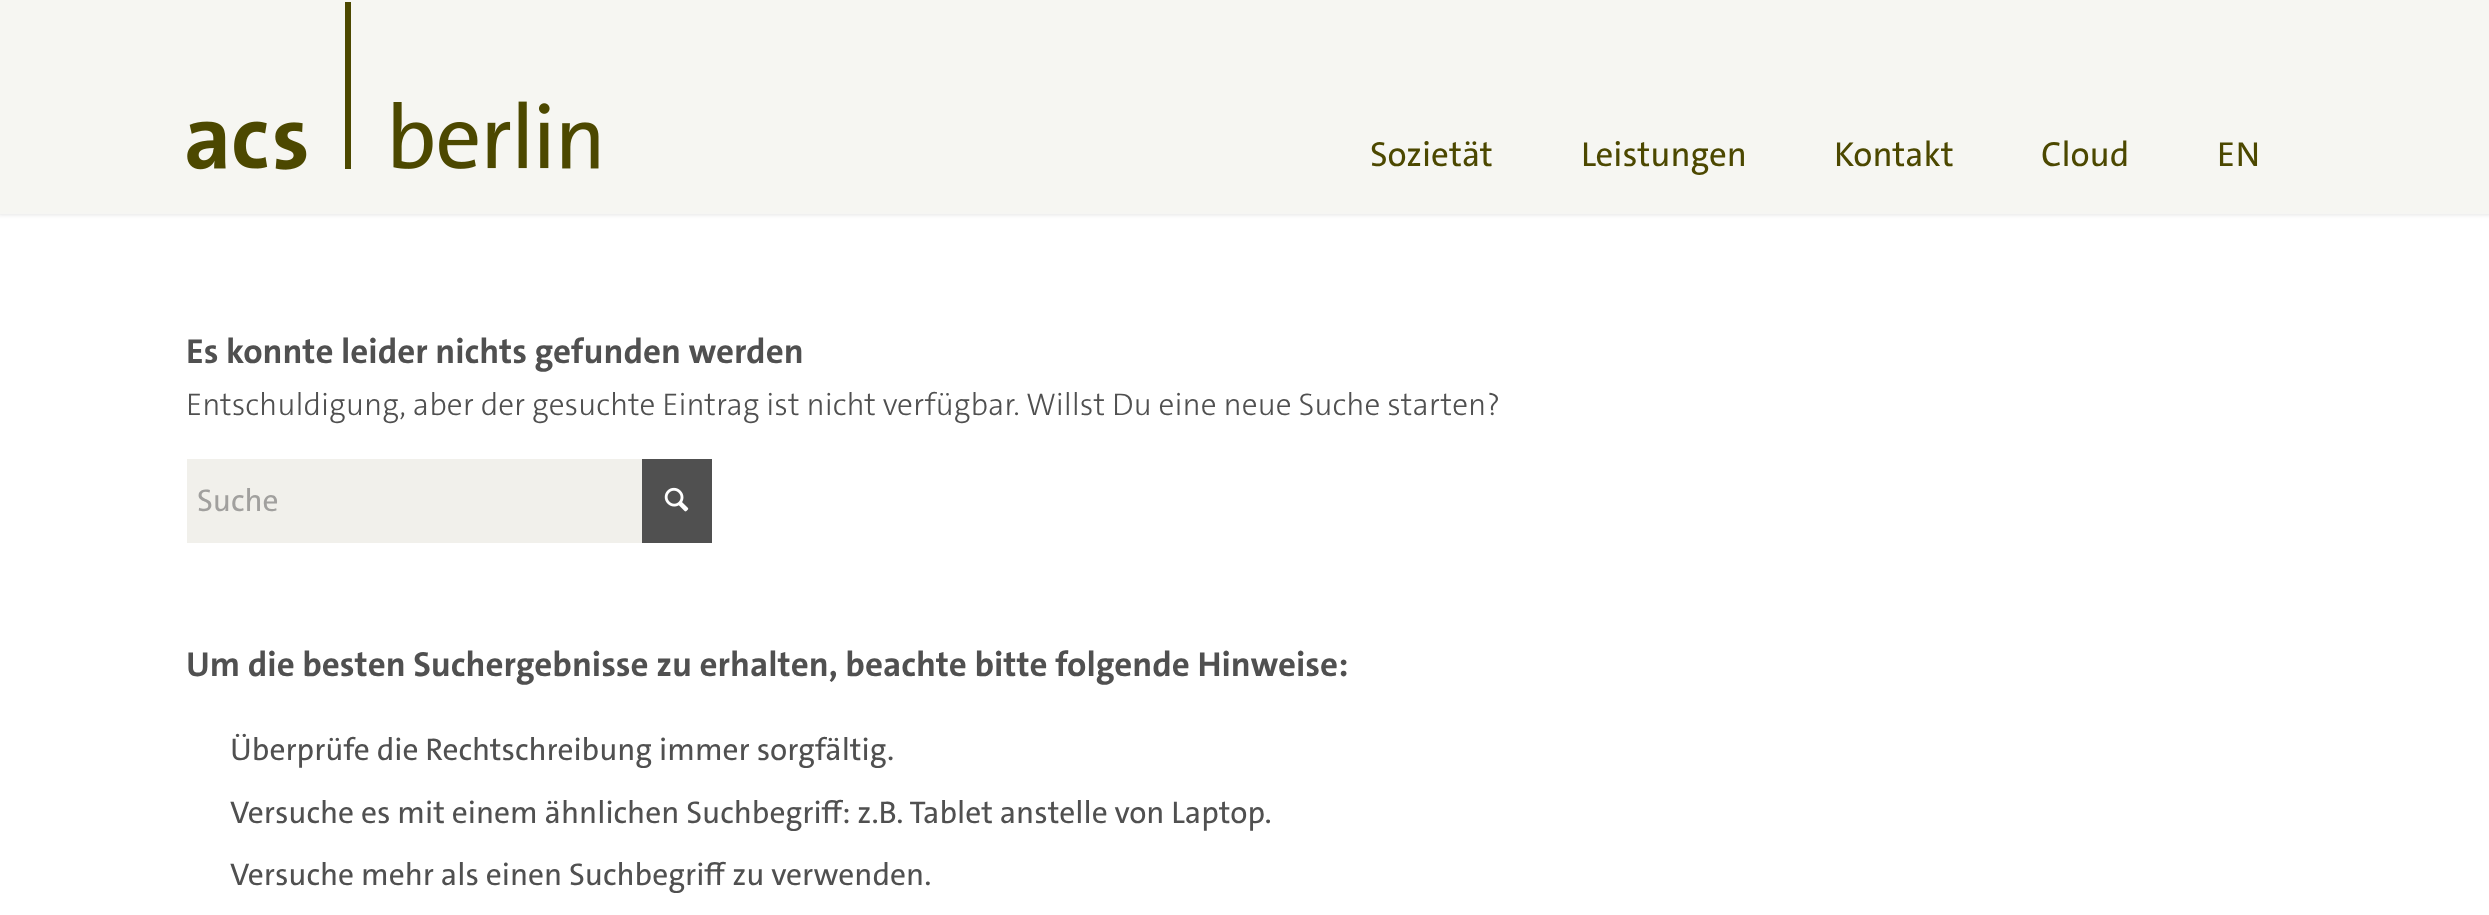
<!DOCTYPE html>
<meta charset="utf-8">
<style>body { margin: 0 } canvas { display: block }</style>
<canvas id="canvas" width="2489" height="915"></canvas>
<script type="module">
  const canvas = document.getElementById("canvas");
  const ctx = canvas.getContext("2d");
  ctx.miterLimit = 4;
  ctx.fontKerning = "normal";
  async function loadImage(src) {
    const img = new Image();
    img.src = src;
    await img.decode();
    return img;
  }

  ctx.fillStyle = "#f6f6f2";
  ctx.fillRect(0, 0, 2489, 915);
  ctx.fillStyle = "#ffffff";
  ctx.fillRect(0, 212, 2489, 703);
  ctx.fillStyle = "#f1f0eb";
  ctx.fillRect(0, 210, 2489, 2);
  ctx.save();
  ctx.beginPath();
  ctx.moveTo(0, 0);
  ctx.lineTo(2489, 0);
  ctx.lineTo(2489, 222);
  ctx.lineTo(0, 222);
  ctx.closePath();
  ctx.moveTo(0, 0);
  ctx.lineTo(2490, 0);
  ctx.lineTo(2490, 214);
  ctx.lineTo(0, 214);
  ctx.closePath();
  ctx.clip("evenodd");
  ctx.fillStyle = "rgba(0, 0, 0, 0.1)";
  ctx.filter = "blur(2px)";
  ctx.beginPath();
  ctx.rect(-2, -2, 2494, 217);
  ctx.fill();
  ctx.filter = "none";
  ctx.restore();
  ctx.drawImage(await loadImage("img1.png"), 187, 2, 412, 168);
  ctx.font = "35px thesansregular";
  ctx.fillStyle = "#4c4800";
  ctx.fillText("Sozietät", 1370, 166);
  ctx.fillText("Leistungen", 1581, 166);
  ctx.fillText("Kontakt", 1834, 166);
  ctx.fillText("Cloud", 2041, 166);
  ctx.fillText("EN", 2217, 166);
  ctx.fillStyle = "rgba(246, 246, 242, 0.95)";
  ctx.fillRect(0, 210, 2489, 4);
  ctx.font = "bold 35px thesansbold";
  ctx.fillStyle = "#505050";
  ctx.fillText("Es konnte leider nichts gefunden werden", 186, 363);
  ctx.font = "300 31.5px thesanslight";
  ctx.fillText("Entschuldigung, aber der gesuchte Eintrag ist nicht verfügbar. Willst Du eine neue Suche starten?", 186, 415);
  ctx.fillRect(642, 459, 70, 84);
  ctx.fillStyle = "#f1f0eb";
  ctx.fillRect(187, 459, 455, 84);
  ctx.font = "31.5px thesansregular";
  ctx.fillStyle = "#a1a09e";
  ctx.fillText("Suche", 197, 511);
  ctx.drawImage(await loadImage("img2.png"), 664, 487, 25, 25);
  ctx.font = "bold 35px thesansbold";
  ctx.fillStyle = "#505050";
  ctx.fillText("Um die besten Suchergebnisse zu erhalten, beachte bitte folgende Hinweise:", 186, 676);
  ctx.font = "31.5px thesansregular";
  ctx.fillText("Überprüfe die Rechtschreibung immer sorgfältig.", 230, 760);
  ctx.fillText("Versuche es mit einem ähnlichen Suchbegriff: z.B. Tablet anstelle von Laptop.", 230, 823);
  ctx.fillText("Versuche mehr als einen Suchbegriff zu verwenden.", 230, 885);
</script>
